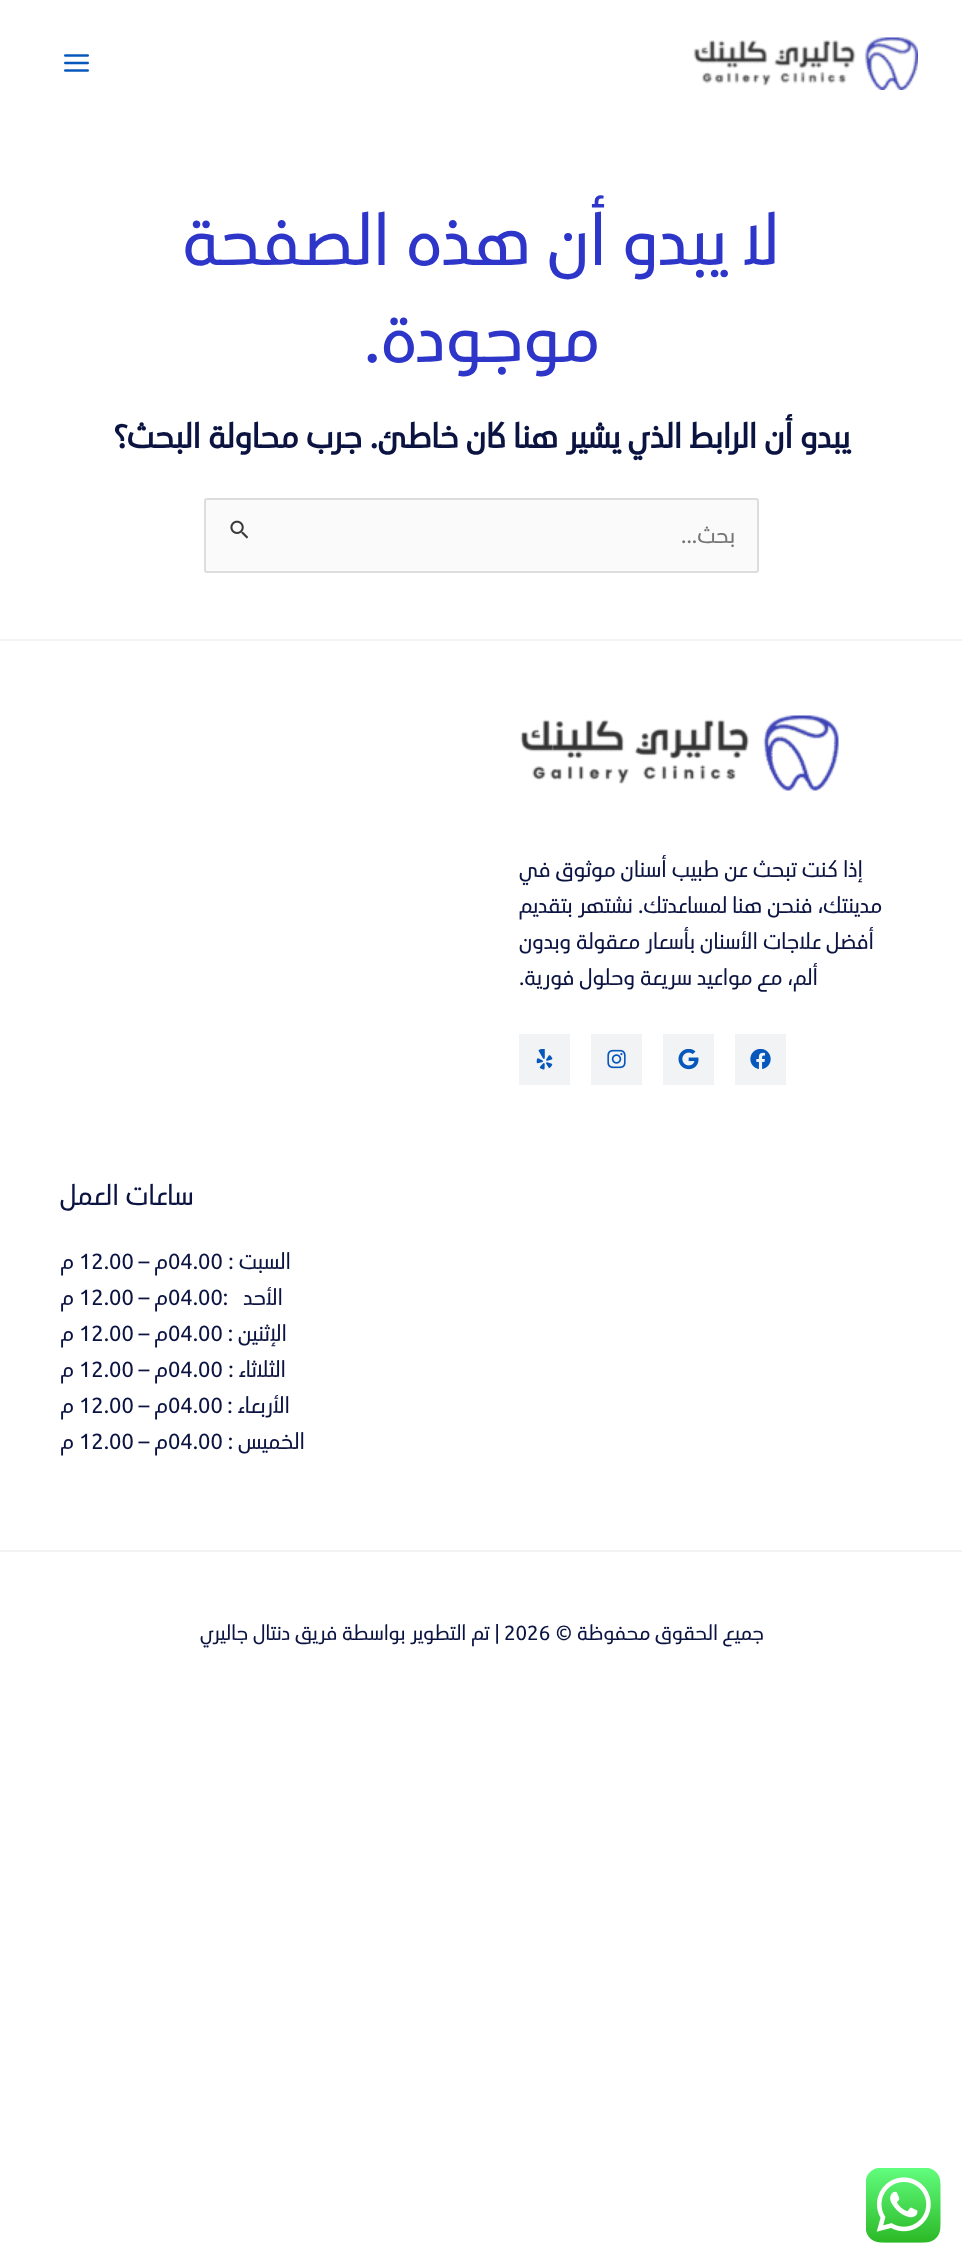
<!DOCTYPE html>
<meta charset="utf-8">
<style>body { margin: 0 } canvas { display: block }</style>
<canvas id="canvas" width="962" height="2265"></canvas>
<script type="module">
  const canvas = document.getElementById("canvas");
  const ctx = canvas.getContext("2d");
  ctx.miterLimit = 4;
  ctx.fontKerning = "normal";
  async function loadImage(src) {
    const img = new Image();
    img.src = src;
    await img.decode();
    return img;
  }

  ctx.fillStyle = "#ffffff";
  ctx.fillRect(0, 0, 962, 2265);
  ctx.drawImage(await loadImage("img1.png"), 693, 37, 225, 53);
  ctx.drawImage(await loadImage("img2.png"), 64, 54, 25, 18);
  ctx.direction = "rtl";
  ctx.font = "69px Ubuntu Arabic";
  ctx.fillStyle = "#2d36c8";
  ctx.fillText("لا يبدو أن هذه الصفحة", 780, 265);
  ctx.fillText("موجودة.", 600, 362);
  ctx.font = "bold 32.8px Ubuntu Arabic";
  ctx.fillStyle = "#0b1341";
  ctx.fillText("يبدو أن الرابط الذي يشير هنا كان خاطئ. جرب محاولة البحث؟", 850, 448);
  ctx.fillStyle = "#fafafa";
  ctx.beginPath();
  ctx.roundRect(205, 499, 553, 73, 2);
  ctx.fill();
  ctx.strokeStyle = "#dddddd";
  ctx.lineWidth = 2;
  ctx.stroke();
  ctx.font = "21.9px Ubuntu Arabic";
  ctx.fillStyle = "#757575";
  ctx.fillText("بحث...", 735, 543);
  ctx.drawImage(await loadImage("img3.png"), 230, 520, 18, 19);
  ctx.fillStyle = "#f1f3f4";
  ctx.fillRect(0, 639, 962, 2);
  ctx.drawImage(await loadImage("img4.png"), 520, 715, 319, 76);
  ctx.fillStyle = "#0b1341";
  ctx.fillText("إذا كنت تبحث عن طبيب أسنان موثوق في", 863, 877);
  ctx.fillText("مدينتك، فنحن هنا لمساعدتك. نشتهر بتقديم", 882, 913);
  ctx.fillText("أفضل علاجات الأسنان بأسعار معقولة وبدون", 874, 949);
  ctx.fillText("ألم، مع مواعيد سريعة وحلول فورية.", 818, 985);
  ctx.fillStyle = "#f1f3f4";
  ctx.fillRect(735, 1034, 51, 51);
  ctx.drawImage(await loadImage("img5.png"), 750, 1049, 21, 20);
  ctx.fillRect(663, 1034, 51, 51);
  ctx.drawImage(await loadImage("img6.png"), 678, 1049, 21, 21);
  ctx.fillRect(591, 1034, 51, 51);
  ctx.drawImage(await loadImage("img7.png"), 607, 1049, 19, 20);
  ctx.fillRect(519, 1034, 51, 51);
  ctx.drawImage(await loadImage("img8.png"), 536, 1049, 17, 21);
  ctx.font = "27.5px Ubuntu Arabic";
  ctx.fillStyle = "#0b1341";
  ctx.fillText("ساعات العمل", 194, 1205);
  ctx.font = "21.9px Ubuntu Arabic";
  ctx.fillText("السبت :", 291, 1269);
  ctx.direction = "ltr";
  ctx.fillText("04.00", 168, 1269);
  ctx.direction = "rtl";
  ctx.fillText("م –", 168, 1269);
  ctx.direction = "ltr";
  ctx.fillText("12.00", 79, 1269);
  ctx.direction = "rtl";
  ctx.fillText("م", 74, 1269);
  ctx.fillText("الأحد", 283, 1305);
  ctx.direction = "ltr";
  ctx.fillText("04.00:", 168, 1305);
  ctx.direction = "rtl";
  ctx.fillText("م –", 168, 1305);
  ctx.direction = "ltr";
  ctx.fillText("12.00", 79, 1305);
  ctx.direction = "rtl";
  ctx.fillText("م", 74, 1305);
  ctx.fillText("الإثنين :", 287, 1341);
  ctx.direction = "ltr";
  ctx.fillText("04.00", 168, 1341);
  ctx.direction = "rtl";
  ctx.fillText("م –", 168, 1341);
  ctx.direction = "ltr";
  ctx.fillText("12.00", 79, 1341);
  ctx.direction = "rtl";
  ctx.fillText("م", 74, 1341);
  ctx.fillText("الثلاثاء :", 286, 1377);
  ctx.direction = "ltr";
  ctx.fillText("04.00", 168, 1377);
  ctx.direction = "rtl";
  ctx.fillText("م –", 168, 1377);
  ctx.direction = "ltr";
  ctx.fillText("12.00", 79, 1377);
  ctx.direction = "rtl";
  ctx.fillText("م", 74, 1377);
  ctx.fillText("الأربعاء :", 290, 1413);
  ctx.direction = "ltr";
  ctx.fillText("04.00", 168, 1413);
  ctx.direction = "rtl";
  ctx.fillText("م –", 168, 1413);
  ctx.direction = "ltr";
  ctx.fillText("12.00", 79, 1413);
  ctx.direction = "rtl";
  ctx.fillText("م", 74, 1413);
  ctx.fillText("الخميس", 305, 1449);
  ctx.direction = "ltr";
  ctx.fillText("04.00 :", 168, 1449);
  ctx.direction = "rtl";
  ctx.fillText("م –", 168, 1449);
  ctx.direction = "ltr";
  ctx.fillText("12.00", 79, 1449);
  ctx.direction = "rtl";
  ctx.fillText("م", 74, 1449);
  ctx.fillStyle = "#f1f3f4";
  ctx.fillRect(0, 1550, 962, 2);
  ctx.font = "20.5px Ubuntu Arabic";
  ctx.fillStyle = "#0b1341";
  ctx.fillText("جميع الحقوق محفوظة ©", 764, 1640);
  ctx.direction = "ltr";
  ctx.fillText("2026", 504, 1640);
  ctx.direction = "rtl";
  ctx.fillText("| تم التطوير بواسطة فريق دنتال جاليري", 500, 1640);
  ctx.drawImage(await loadImage("img9.png"), 866, 2168, 75, 75);
</script>
